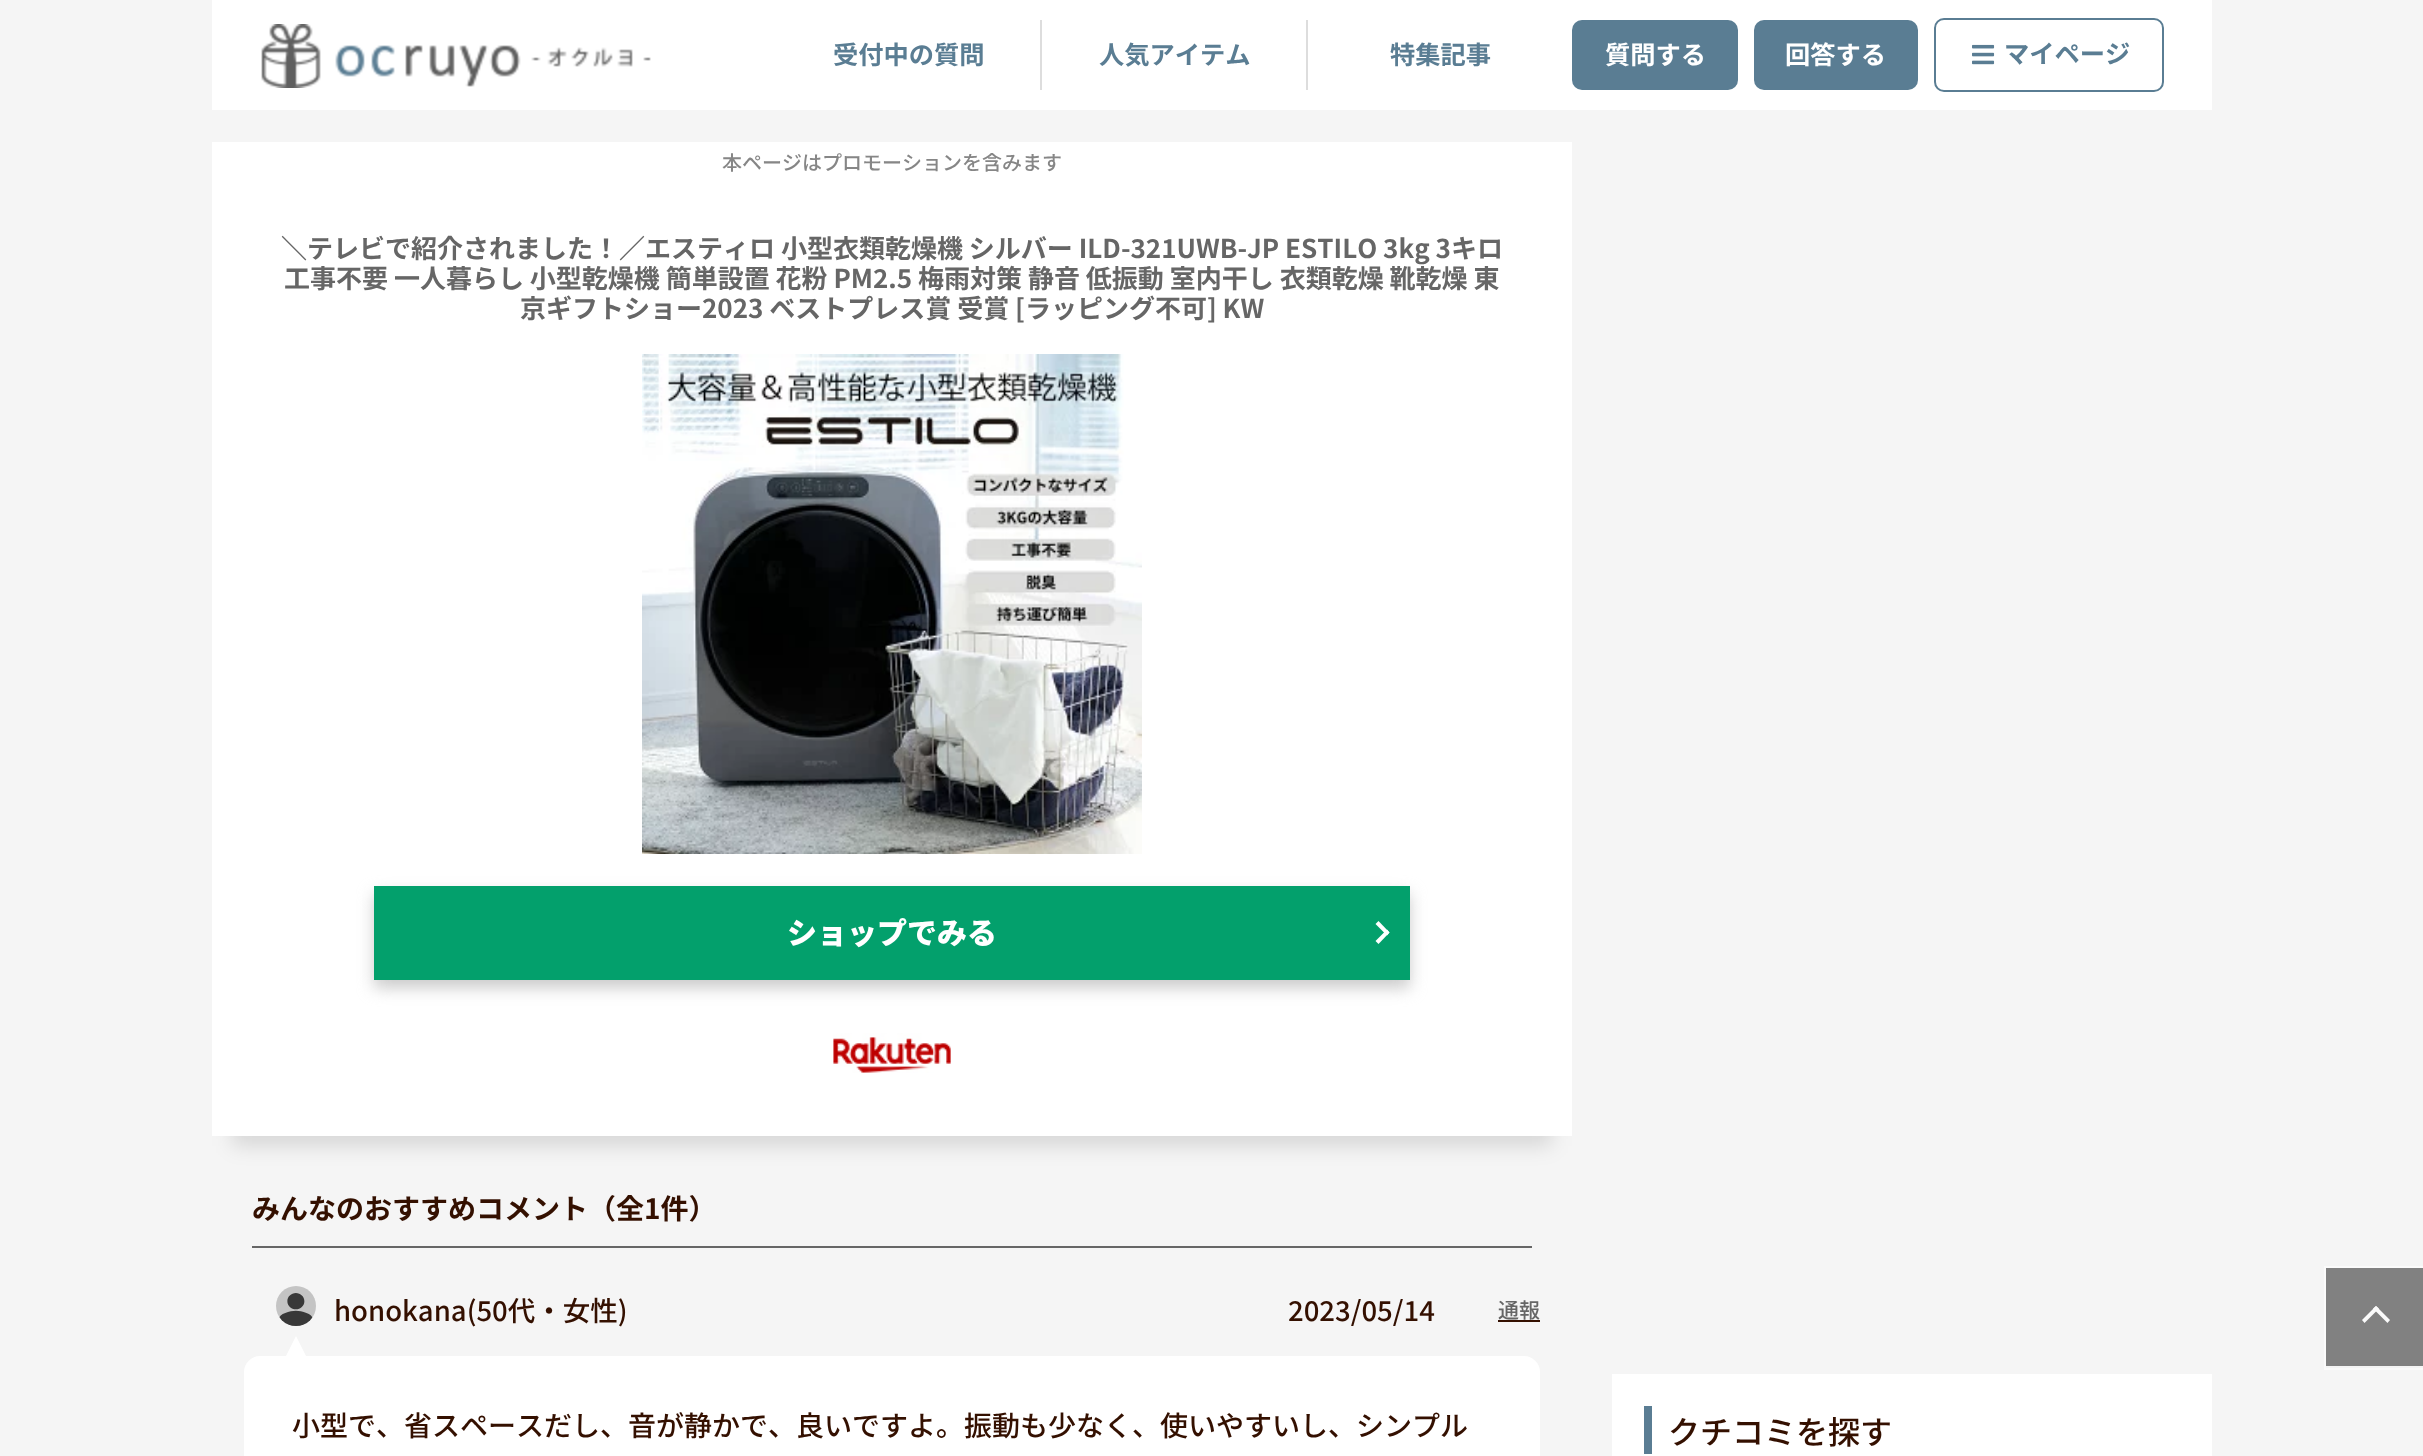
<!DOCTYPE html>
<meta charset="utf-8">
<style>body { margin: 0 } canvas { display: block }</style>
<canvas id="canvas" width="2423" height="1456"></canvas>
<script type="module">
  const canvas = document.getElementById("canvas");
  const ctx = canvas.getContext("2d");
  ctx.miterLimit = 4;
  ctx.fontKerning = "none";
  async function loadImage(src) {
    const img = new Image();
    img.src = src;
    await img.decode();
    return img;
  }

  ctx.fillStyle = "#f5f5f5";
  ctx.fillRect(0, 0, 2423, 1456);
  ctx.fillStyle = "#ffffff";
  ctx.fillRect(212, 0, 2000, 110);
  ctx.drawImage(await loadImage("img1.png"), 261, 24, 390, 64);
  ctx.font = "bold 25.25px Noto Sans JP";
  ctx.fillStyle = "#5a7d93";
  ctx.fillText("受付中の質問", 833, 64);
  ctx.fillStyle = "#dddddd";
  ctx.fillRect(1040, 20, 2, 70);
  ctx.fillStyle = "#5a7d93";
  ctx.fillText("人気アイテム", 1099, 64);
  ctx.fillStyle = "#dddddd";
  ctx.fillRect(1306, 20, 2, 70);
  ctx.fillStyle = "#5a7d93";
  ctx.fillText("特集記事", 1390, 64);
  ctx.beginPath();
  ctx.roundRect(1572, 20, 166, 70, 10);
  ctx.fill();
  ctx.fillStyle = "#ffffff";
  ctx.fillText("質問する", 1605, 64);
  ctx.fillStyle = "#5a7d93";
  ctx.beginPath();
  ctx.roundRect(1754, 20, 164, 70, 10);
  ctx.fill();
  ctx.fillStyle = "#ffffff";
  ctx.fillText("回答する", 1785, 64);
  ctx.beginPath();
  ctx.roundRect(1935, 19, 228, 72, 9);
  ctx.strokeStyle = "#5a7d93";
  ctx.lineWidth = 2;
  ctx.stroke();
  ctx.drawImage(await loadImage("img2.png"), 1972, 44, 23, 21);
  ctx.fillStyle = "#5a7d93";
  ctx.fillText("マイページ", 2004, 63);
  ctx.fillStyle = "#ffffff";
  ctx.fillRect(212, 142, 1360, 38);
  ctx.font = "500 20px Noto Sans JP";
  ctx.fillStyle = "#868686";
  ctx.fillText("本ページはプロモーションを含みます", 722, 170);
  ctx.fillStyle = "rgba(0, 0, 0, 0.12)";
  ctx.filter = "blur(10px)";
  ctx.beginPath();
  ctx.rect(232, 230, 1320, 916);
  ctx.fill();
  ctx.filter = "none";
  ctx.fillStyle = "#ffffff";
  ctx.fillRect(212, 180, 1360, 956);
  ctx.font = "bold 26px Noto Sans JP";
  ctx.fillStyle = "#666666";
  ctx.fillText("＼テレビで紹介されました！／エスティロ 小型衣類乾燥機 シルバー ILD-321UWB-JP ESTILO 3kg 3キロ", 281, 258);
  ctx.fillText("工事不要 一人暮らし 小型乾燥機 簡単設置 花粉 PM2.5 梅雨対策 静音 低振動 室内干し 衣類乾燥 靴乾燥 東", 284, 288);
  ctx.fillText("京ギフトショー2023 ベストプレス賞 受賞 [ラッピング不可] KW", 520, 318);
  ctx.drawImage(await loadImage("img3.png"), 642, 354, 500, 500);
  ctx.fillStyle = "#cbcbcb";
  ctx.filter = "blur(8px)";
  ctx.beginPath();
  ctx.rect(374, 894, 1036, 94);
  ctx.fill();
  ctx.filter = "none";
  ctx.fillStyle = "#03a06c";
  ctx.fillRect(374, 886, 1036, 94);
  ctx.font = "900 30px Noto Sans JP";
  ctx.fillStyle = "#ffffff";
  ctx.fillText("ショップでみる", 787, 944);
  ctx.beginPath();
  ctx.moveTo(1375.5, 924);
  ctx.lineTo(1378.5, 921);
  ctx.lineTo(1389.5, 932.5);
  ctx.lineTo(1387, 935.5);
  ctx.closePath();
  ctx.fill();
  ctx.beginPath();
  ctx.moveTo(1375.5, 941);
  ctx.lineTo(1387, 929.5);
  ctx.lineTo(1389.5, 932.5);
  ctx.lineTo(1378.5, 944);
  ctx.closePath();
  ctx.fill();
  ctx.drawImage(await loadImage("img4.png"), 833, 1033, 118, 40);
  ctx.fillStyle = "#666666";
  ctx.fillRect(252, 1246, 1280, 2);
  ctx.font = "bold 28px Noto Sans JP";
  ctx.fillStyle = "#341000";
  ctx.fillText("みんなのおすすめコメント（全1件）", 252, 1219);
  ctx.drawImage(await loadImage("img5.png"), 276, 1286, 40, 40);
  ctx.font = "500 27.5px Noto Sans JP";
  ctx.fillText("honokana(50代・女性)", 334, 1321);
  ctx.fillText("2023/05/14", 1288, 1321);
  ctx.font = "500 21px Noto Sans JP";
  ctx.fillStyle = "#666666";
  ctx.fillText("通報", 1498, 1318);
  ctx.fillStyle = "#341000";
  ctx.fillRect(1498, 1320, 42, 2);
  ctx.fillStyle = "#ffffff";
  ctx.beginPath();
  ctx.roundRect(244, 1356, 1296, 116, 16);
  ctx.fill();
  ctx.beginPath();
  ctx.moveTo(306, 1356);
  ctx.lineTo(286, 1356);
  ctx.lineTo(296, 1336);
  ctx.closePath();
  ctx.fill();
  ctx.font = "500 28px Noto Sans JP";
  ctx.fillStyle = "#341000";
  ctx.fillText("小型で、省スペースだし、音が静かで", 292, 1436);
  ctx.fillText("、良いですよ。振動も少なく、使いやすいし、シンプル", 768, 1436);
  ctx.fillStyle = "#ffffff";
  ctx.fillRect(1612, 1374, 600, 82);
  ctx.fillStyle = "#5a7d93";
  ctx.fillRect(1644, 1406, 8, 48);
  ctx.font = "500 32px Noto Sans JP";
  ctx.fillStyle = "#341000";
  ctx.fillText("クチコミを探す", 1668, 1444);
  ctx.fillStyle = "#818181";
  ctx.fillRect(2326, 1268, 97, 98);
  ctx.strokeStyle = "#fbfbfb";
  ctx.strokeRect(2325, 1267, 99, 102);
  ctx.fillStyle = "#fbfbfb";
  ctx.beginPath();
  ctx.moveTo(2376, 1306);
  ctx.lineTo(2390, 1320);
  ctx.lineTo(2387.5, 1323);
  ctx.lineTo(2373, 1308.5);
  ctx.closePath();
  ctx.fill();
  ctx.beginPath();
  ctx.moveTo(2376, 1306);
  ctx.lineTo(2379, 1308.5);
  ctx.lineTo(2364.5, 1323);
  ctx.lineTo(2362, 1320);
  ctx.closePath();
  ctx.fill();
</script>
